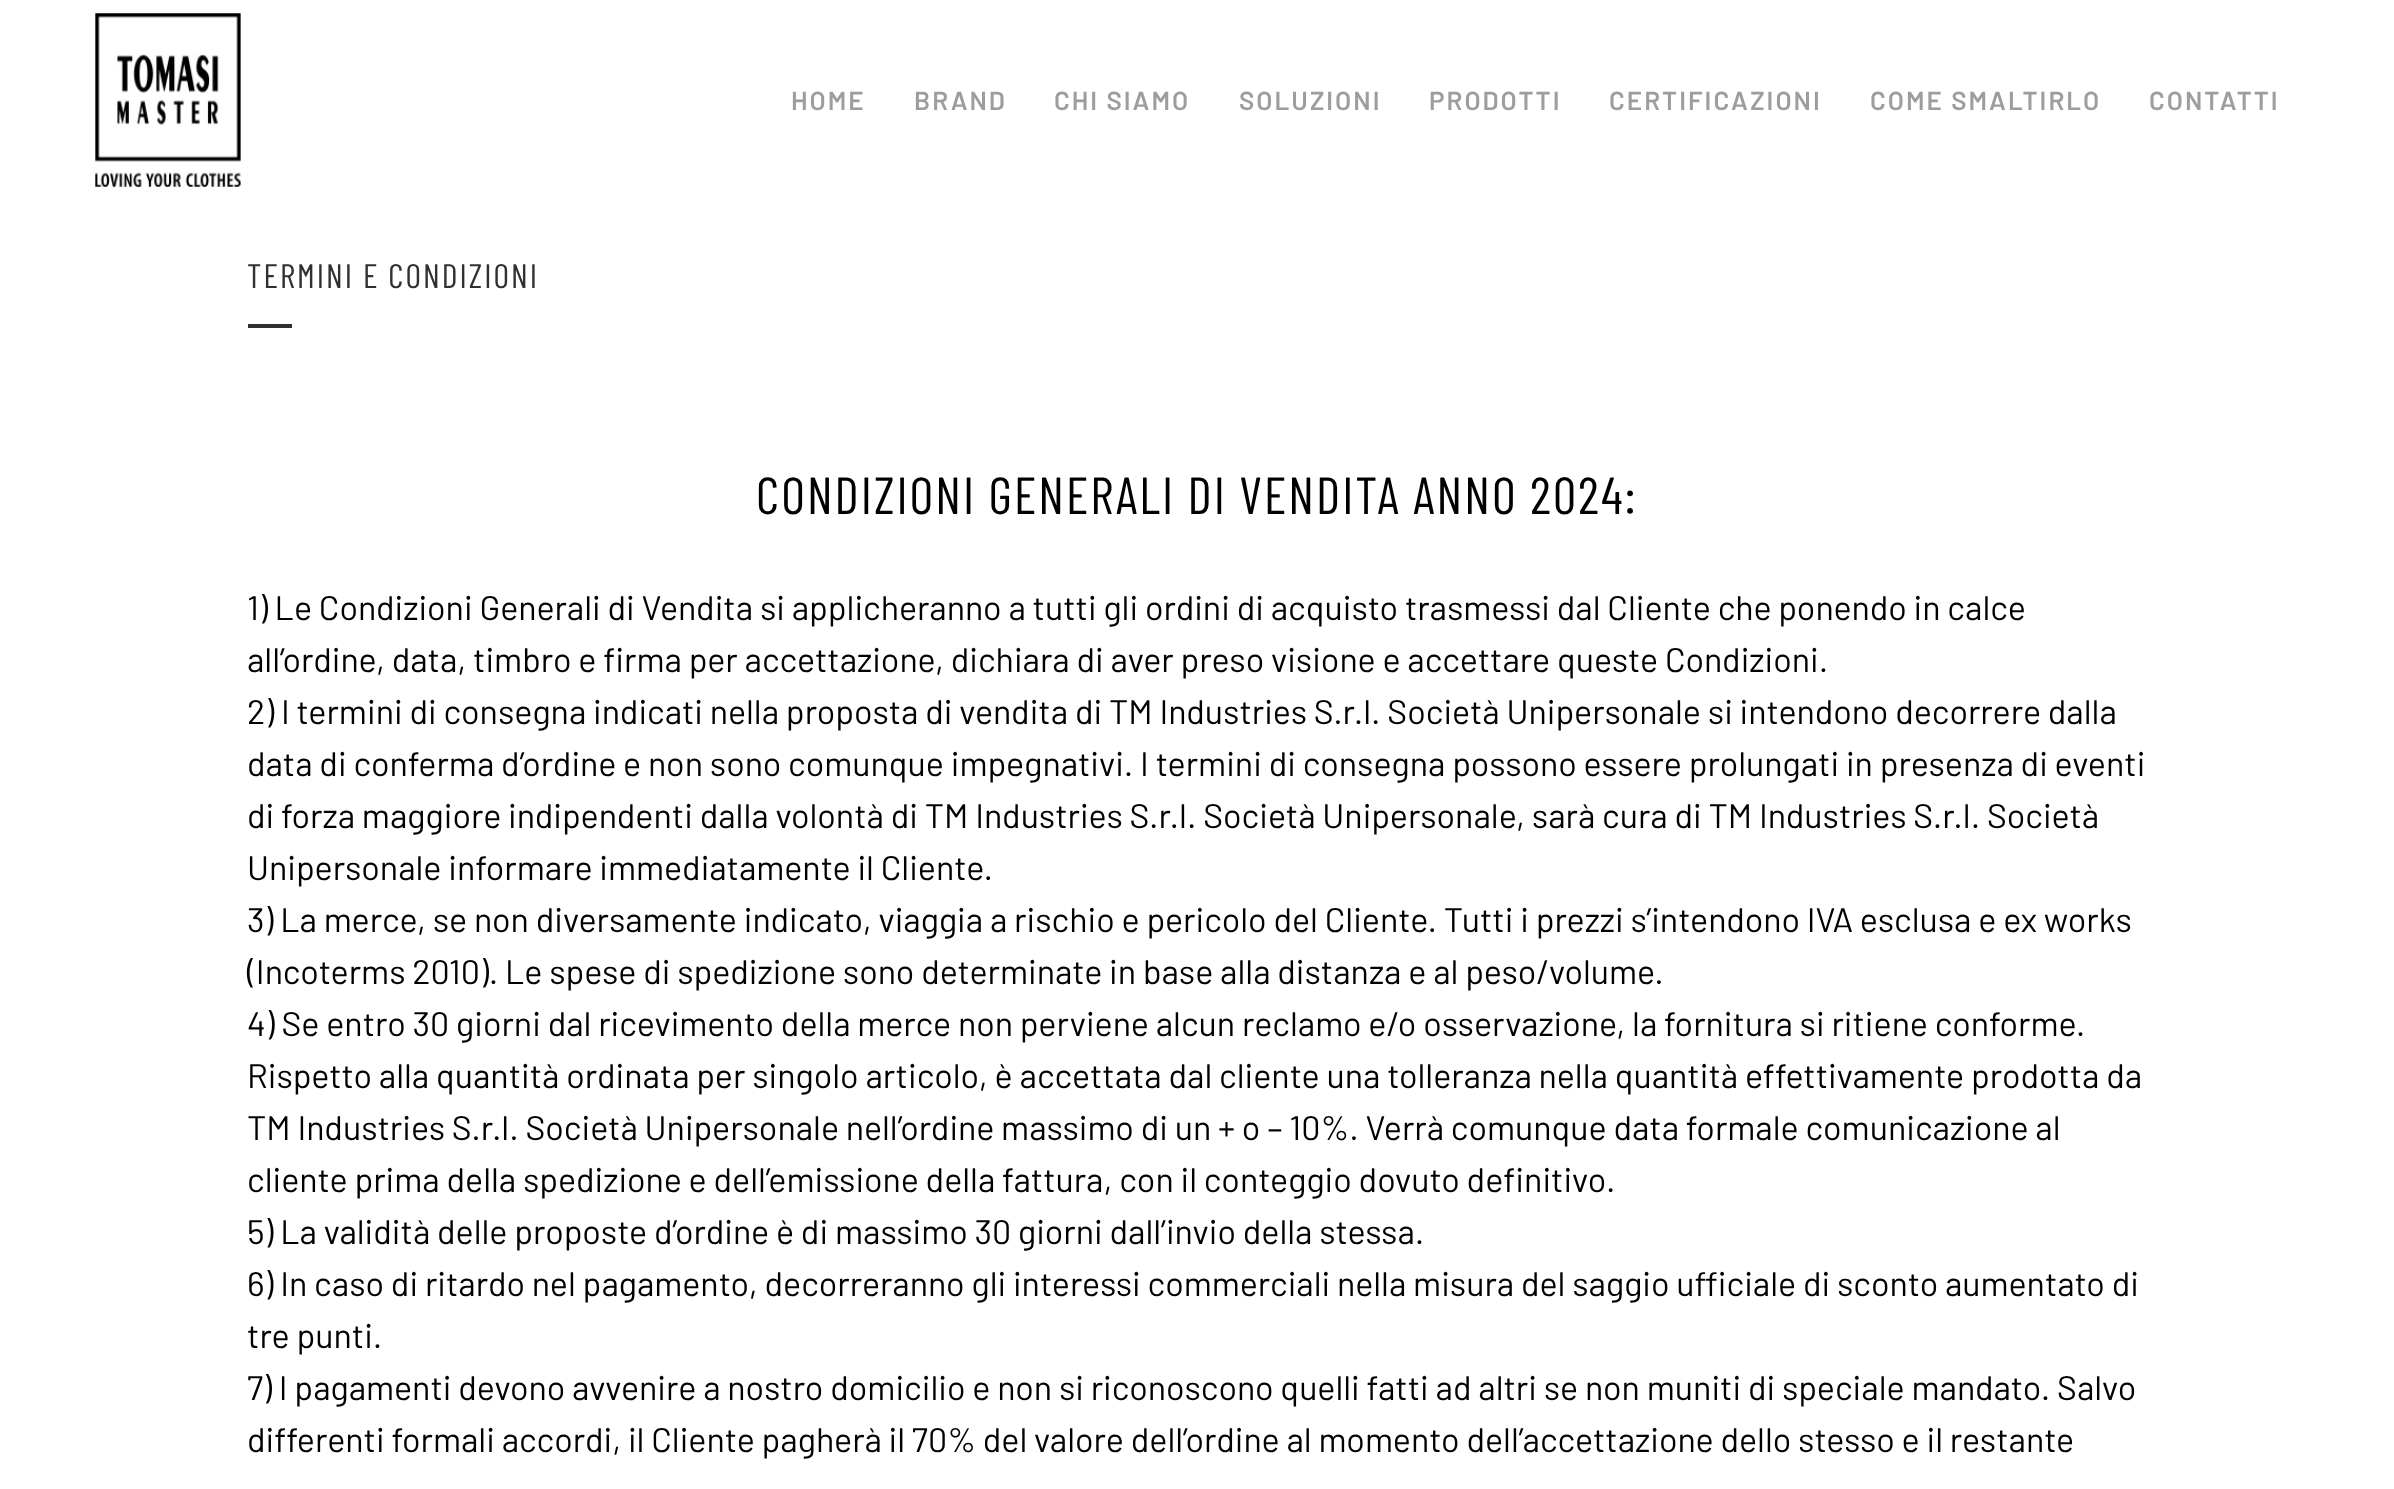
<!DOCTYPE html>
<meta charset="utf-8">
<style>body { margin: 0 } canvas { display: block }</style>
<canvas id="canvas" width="2394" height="1489"></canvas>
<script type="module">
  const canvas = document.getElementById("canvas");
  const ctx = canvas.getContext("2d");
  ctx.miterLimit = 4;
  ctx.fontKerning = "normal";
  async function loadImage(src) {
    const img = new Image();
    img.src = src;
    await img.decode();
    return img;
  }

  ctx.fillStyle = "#ffffff";
  ctx.fillRect(0, 0, 2394, 1489);
  ctx.drawImage(await loadImage("img1.png"), 95, 13, 146, 174);
  ctx.letterSpacing = "2px";
  ctx.font = "600 26px Barlow";
  ctx.fillStyle = "#9d9d9d";
  ctx.fillText("HOME", 791, 110);
  ctx.fillText("BRAND", 914, 110);
  ctx.fillText("CHI SIAMO", 1054, 110);
  ctx.fillText("SOLUZIONI", 1239, 110);
  ctx.fillText("PRODOTTI", 1429, 110);
  ctx.fillText("CERTIFICAZIONI", 1609, 110);
  ctx.fillText("COME SMALTIRLO", 1870, 110);
  ctx.fillText("CONTATTI", 2149, 110);
  ctx.font = "34px Barlow Condensed";
  ctx.fillStyle = "#303030";
  ctx.fillText("TERMINI E CONDIZIONI", 247, 288);
  ctx.fillRect(248, 324, 44, 4);
  ctx.font = "52px Barlow Condensed";
  ctx.fillStyle = "#000000";
  ctx.fillText("CONDIZIONI GENERALI DI VENDITA ANNO 2024:", 756, 514);
  ctx.letterSpacing = "0px";
  ctx.font = "34px Barlow";
  ctx.fillText("1) Le Condizioni Generali di Vendita si applicheranno a tutti gli ordini di acquisto trasmessi dal Cliente che ponendo in calce", 247, 620);
  ctx.fillText("all’ordine, data, timbro e firma per accettazione, dichiara di aver preso visione e accettare queste Condizioni.", 247, 672);
  ctx.fillText("2) I termini di consegna indicati nella proposta di vendita di TM Industries S.r.l. Società Unipersonale si intendono decorrere dalla", 247, 724);
  ctx.fillText("data di conferma d’ordine e non sono comunque impegnativi. I termini di consegna possono essere prolungati in presenza di eventi", 247, 776);
  ctx.fillText("di forza maggiore indipendenti dalla volontà di TM Industries S.r.l. Società Unipersonale, sarà cura di TM Industries S.r.l. Società", 247, 828);
  ctx.fillText("Unipersonale informare immediatamente il Cliente.", 247, 880);
  ctx.fillText("3) La merce, se non diversamente indicato, viaggia a rischio e pericolo del Cliente. Tutti i prezzi s’intendono IVA esclusa e ex works", 247, 932);
  ctx.fillText("(Incoterms 2010). Le spese di spedizione sono determinate in base alla distanza e al peso/volume.", 247, 984);
  ctx.fillText("4) Se entro 30 giorni dal ricevimento della merce non perviene alcun reclamo e/o osservazione, la fornitura si ritiene conforme.", 247, 1036);
  ctx.fillText("Rispetto alla quantità ordinata per singolo articolo, è accettata dal cliente una tolleranza nella quantità effettivamente prodotta da", 247, 1088);
  ctx.fillText("TM Industries S.r.l. Società Unipersonale nell’ordine massimo di un + o – 10%. Verrà comunque data formale comunicazione al", 247, 1140);
  ctx.fillText("cliente prima della spedizione e dell’emissione della fattura, con il conteggio dovuto definitivo.", 247, 1192);
  ctx.fillText("5) La validità delle proposte d’ordine è di massimo 30 giorni dall’invio della stessa.", 247, 1244);
  ctx.fillText("6) In caso di ritardo nel pagamento, decorreranno gli interessi commerciali nella misura del saggio ufficiale di sconto aumentato di", 247, 1296);
  ctx.fillText("tre punti.", 247, 1348);
  ctx.fillText("7) I pagamenti devono avvenire a nostro domicilio e non si riconoscono quelli fatti ad altri se non muniti di speciale mandato. Salvo", 247, 1400);
  ctx.fillText("differenti formali accordi, il Cliente pagherà il 70% del valore dell’ordine al momento dell’accettazione dello stesso e il restante", 247, 1452);
</script>
